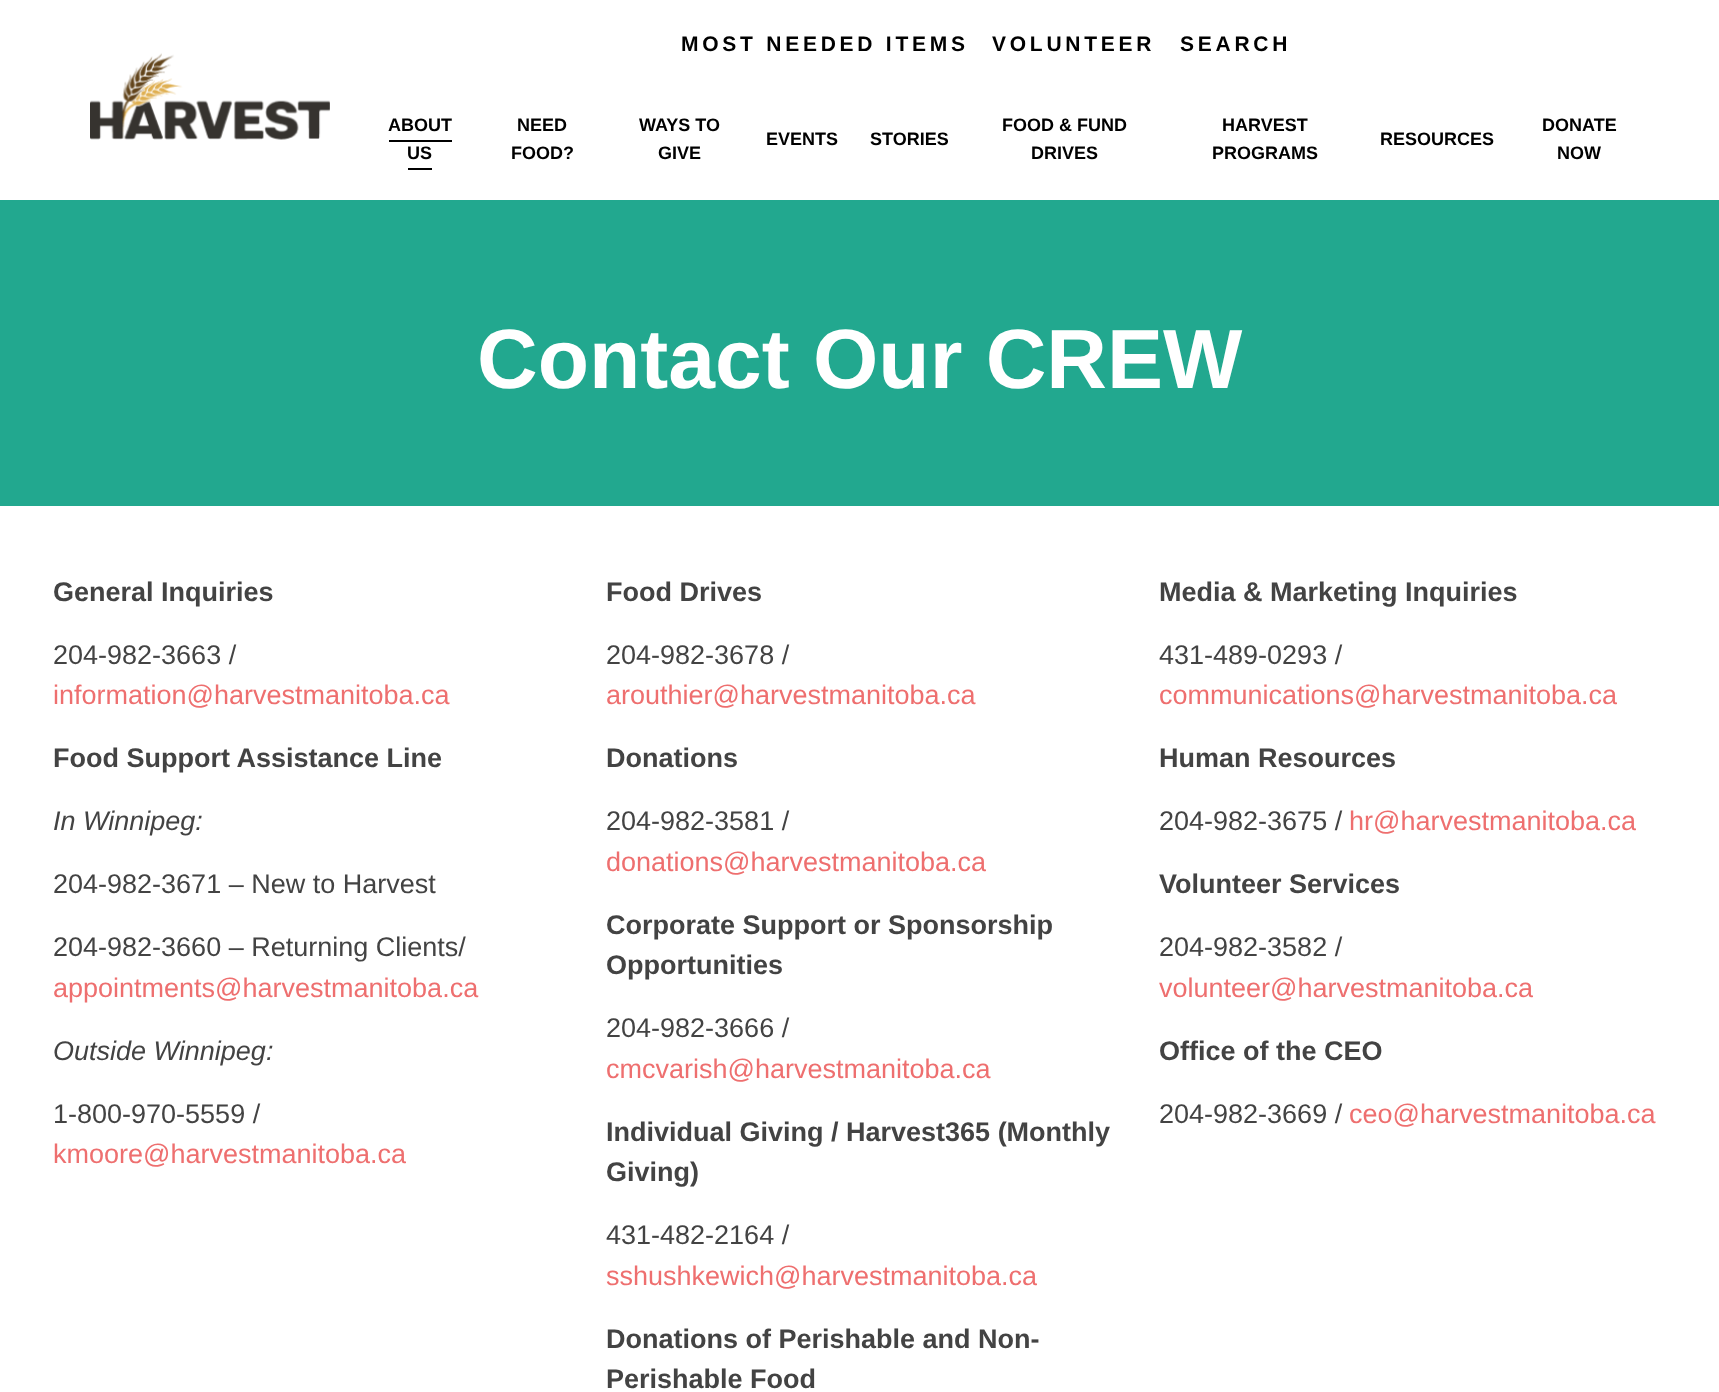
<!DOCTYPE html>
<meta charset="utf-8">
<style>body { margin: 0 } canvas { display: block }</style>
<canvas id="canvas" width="1719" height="1392"></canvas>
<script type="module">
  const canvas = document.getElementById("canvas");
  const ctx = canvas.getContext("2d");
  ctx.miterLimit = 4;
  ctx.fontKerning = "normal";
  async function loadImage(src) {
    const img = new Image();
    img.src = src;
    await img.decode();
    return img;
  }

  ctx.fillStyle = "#ffffff";
  ctx.fillRect(0, 0, 1719, 1392);
  ctx.drawImage(await loadImage("img1.png"), 90, 53, 240, 87);
  ctx.letterSpacing = "3.75px";
  ctx.font = "bold 21px Liberation Sans";
  ctx.fillStyle = "#000000";
  ctx.fillText("MOST NEEDED ITEMS", 681, 51);
  ctx.fillText("VOLUNTEER", 992, 51);
  ctx.fillText("SEARCH", 1180, 51);
  ctx.letterSpacing = "0px";
  ctx.font = "bold 18px Liberation Sans";
  ctx.fillText("ABOUT", 388, 131);
  ctx.fillText("US", 407, 159);
  ctx.fillRect(389, 140, 63, 2);
  ctx.fillRect(408, 168, 24, 2);
  ctx.fillText("NEED", 517, 131);
  ctx.fillText("FOOD?", 511, 159);
  ctx.fillText("WAYS TO", 639, 131);
  ctx.fillText("GIVE", 658, 159);
  ctx.fillText("EVENTS", 766, 145);
  ctx.fillText("STORIES", 870, 145);
  ctx.fillText("FOOD & FUND", 1002, 131);
  ctx.fillText("DRIVES", 1031, 159);
  ctx.fillText("HARVEST", 1222, 131);
  ctx.fillText("PROGRAMS", 1212, 159);
  ctx.fillText("RESOURCES", 1380, 145);
  ctx.fillText("DONATE", 1542, 131);
  ctx.fillText("NOW", 1557, 159);
  ctx.fillStyle = "#22a88f";
  ctx.fillRect(0, 200, 1719, 306);
  ctx.font = "bold 84px Liberation Sans";
  ctx.fillStyle = "#ffffff";
  ctx.fillText("Contact Our CREW", 477, 388);
  ctx.font = "bold 27px Liberation Sans";
  ctx.fillStyle = "#434343";
  ctx.fillText("General Inquiries", 53, 601);
  ctx.font = "27px Liberation Sans";
  ctx.fillText("204-982-3663 /", 53, 664);
  ctx.fillStyle = "#ee6f6f";
  ctx.fillText("information@harvestmanitoba.ca", 53, 704);
  ctx.font = "bold 27px Liberation Sans";
  ctx.fillStyle = "#434343";
  ctx.fillText("Food Support Assistance Line", 53, 767);
  ctx.font = "italic 27px Liberation Sans";
  ctx.fillText("In Winnipeg:", 53, 830);
  ctx.font = "27px Liberation Sans";
  ctx.fillText("204-982-3671 – New to Harvest", 53, 893);
  ctx.fillText("204-982-3660 – Returning Clients/", 53, 956);
  ctx.fillStyle = "#ee6f6f";
  ctx.fillText("appointments@harvestmanitoba.ca", 53, 997);
  ctx.font = "italic 27px Liberation Sans";
  ctx.fillStyle = "#434343";
  ctx.fillText("Outside Winnipeg:", 53, 1060);
  ctx.font = "27px Liberation Sans";
  ctx.fillText("1-800-970-5559 /", 53, 1123);
  ctx.fillStyle = "#ee6f6f";
  ctx.fillText("kmoore@harvestmanitoba.ca", 53, 1163);
  ctx.font = "bold 27px Liberation Sans";
  ctx.fillStyle = "#434343";
  ctx.fillText("Food Drives", 606, 601);
  ctx.font = "27px Liberation Sans";
  ctx.fillText("204-982-3678 /", 606, 664);
  ctx.fillStyle = "#ee6f6f";
  ctx.fillText("arouthier@harvestmanitoba.ca", 606, 704);
  ctx.font = "bold 27px Liberation Sans";
  ctx.fillStyle = "#434343";
  ctx.fillText("Donations", 606, 767);
  ctx.font = "27px Liberation Sans";
  ctx.fillText("204-982-3581 /", 606, 830);
  ctx.fillStyle = "#ee6f6f";
  ctx.fillText("donations@harvestmanitoba.ca", 606, 871);
  ctx.font = "bold 27px Liberation Sans";
  ctx.fillStyle = "#434343";
  ctx.fillText("Corporate Support or Sponsorship", 606, 934);
  ctx.fillText("Opportunities", 606, 974);
  ctx.font = "27px Liberation Sans";
  ctx.fillText("204-982-3666 /", 606, 1037);
  ctx.fillStyle = "#ee6f6f";
  ctx.fillText("cmcvarish@harvestmanitoba.ca", 606, 1078);
  ctx.font = "bold 27px Liberation Sans";
  ctx.fillStyle = "#434343";
  ctx.fillText("Individual Giving / Harvest365 (Monthly", 606, 1141);
  ctx.fillText("Giving)", 606, 1181);
  ctx.font = "27px Liberation Sans";
  ctx.fillText("431-482-2164 /", 606, 1244);
  ctx.fillStyle = "#ee6f6f";
  ctx.fillText("sshushkewich@harvestmanitoba.ca", 606, 1285);
  ctx.font = "bold 27px Liberation Sans";
  ctx.fillStyle = "#434343";
  ctx.fillText("Donations of Perishable and Non-", 606, 1348);
  ctx.fillText("Perishable Food", 606, 1388);
  ctx.fillText("Media & Marketing Inquiries", 1159, 601);
  ctx.font = "27px Liberation Sans";
  ctx.fillText("431-489-0293 /", 1159, 664);
  ctx.fillStyle = "#ee6f6f";
  ctx.fillText("communications@harvestmanitoba.ca", 1159, 704);
  ctx.font = "bold 27px Liberation Sans";
  ctx.fillStyle = "#434343";
  ctx.fillText("Human Resources", 1159, 767);
  ctx.font = "27px Liberation Sans";
  ctx.fillText("204-982-3675 /", 1159, 830);
  ctx.fillStyle = "#ee6f6f";
  ctx.fillText("hr@harvestmanitoba.ca", 1349, 830);
  ctx.font = "bold 27px Liberation Sans";
  ctx.fillStyle = "#434343";
  ctx.fillText("Volunteer Services", 1159, 893);
  ctx.font = "27px Liberation Sans";
  ctx.fillText("204-982-3582 /", 1159, 956);
  ctx.fillStyle = "#ee6f6f";
  ctx.fillText("volunteer@harvestmanitoba.ca", 1159, 997);
  ctx.font = "bold 27px Liberation Sans";
  ctx.fillStyle = "#434343";
  ctx.fillText("Office of the CEO", 1159, 1060);
  ctx.font = "27px Liberation Sans";
  ctx.fillText("204-982-3669 /", 1159, 1123);
  ctx.fillStyle = "#ee6f6f";
  ctx.fillText("ceo@harvestmanitoba.ca", 1349, 1123);
</script>
